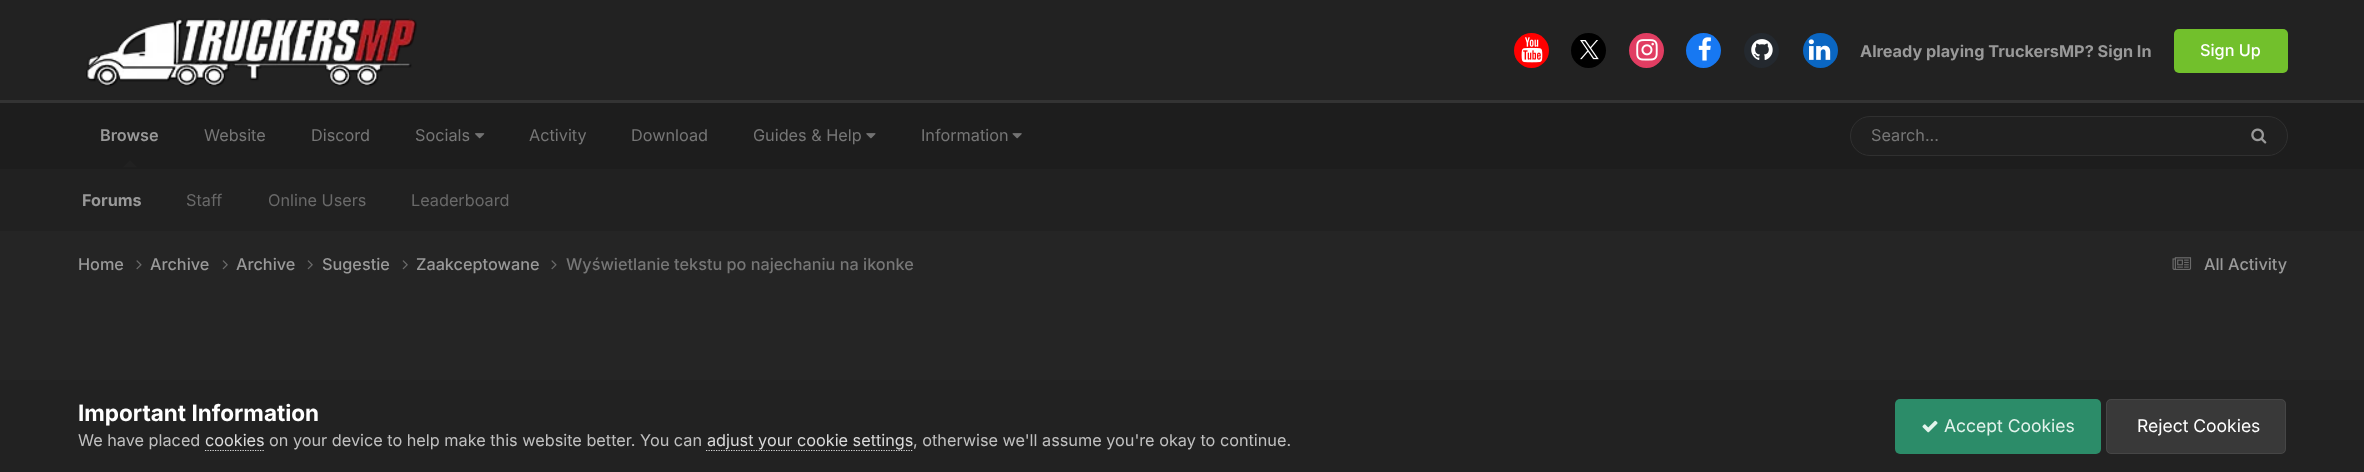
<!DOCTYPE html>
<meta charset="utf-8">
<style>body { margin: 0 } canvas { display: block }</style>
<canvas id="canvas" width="2364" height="472"></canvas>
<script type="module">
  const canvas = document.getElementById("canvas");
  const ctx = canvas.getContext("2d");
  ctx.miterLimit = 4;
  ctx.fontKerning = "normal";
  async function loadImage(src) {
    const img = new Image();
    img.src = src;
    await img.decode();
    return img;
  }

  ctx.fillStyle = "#252525";
  ctx.fillRect(0, 0, 2364, 472);
  ctx.fillStyle = "#222222";
  ctx.fillRect(0, 0, 2364, 100);
  ctx.drawImage(await loadImage("img1.png"), 86, 18, 331, 69);
  ctx.fillStyle = "#ff0000";
  ctx.beginPath();
  ctx.arc(1531.5, 50.5, 17.5, 0, Math.PI * 2);
  ctx.fill();
  ctx.drawImage(await loadImage("img2.png"), 1521, 37, 22, 26);
  ctx.fillStyle = "#000000";
  ctx.beginPath();
  ctx.arc(1588.5, 50.5, 17.5, 0, Math.PI * 2);
  ctx.fill();
  ctx.drawImage(await loadImage("img3.png"), 1580, 40, 19, 20);
  ctx.fillStyle = "#e13d62";
  ctx.beginPath();
  ctx.arc(1646.5, 50.5, 17.5, 0, Math.PI * 2);
  ctx.fill();
  ctx.drawImage(await loadImage("img4.png"), 1636, 39, 22, 22);
  ctx.fillStyle = "#1778f2";
  ctx.beginPath();
  ctx.arc(1703.5, 50.5, 17.5, 0, Math.PI * 2);
  ctx.fill();
  ctx.drawImage(await loadImage("img5.png"), 1698, 37, 13, 24);
  ctx.fillStyle = "#24292f";
  ctx.beginPath();
  ctx.arc(1761.5, 50.5, 17.5, 0, Math.PI * 2);
  ctx.fill();
  ctx.drawImage(await loadImage("img6.png"), 1751, 39, 22, 21);
  ctx.fillStyle = "#0a66c2";
  ctx.beginPath();
  ctx.arc(1820.5, 50.5, 17.5, 0, Math.PI * 2);
  ctx.fill();
  ctx.drawImage(await loadImage("img7.png"), 1808, 39, 23, 21);
  ctx.font = "bold 16.25px Inter";
  ctx.fillStyle = "#999999";
  ctx.fillText("Already playing TruckersMP? Sign In", 1860, 57);
  ctx.fillStyle = "#72c02c";
  ctx.beginPath();
  ctx.roundRect(2174, 29, 114, 44, 5);
  ctx.fill();
  ctx.font = "500 16.25px Inter";
  ctx.fillStyle = "#ffffff";
  ctx.fillText("Sign Up", 2200, 56);
  ctx.fillStyle = "#1d1d1d";
  ctx.fillRect(0, 103, 2364, 66);
  ctx.fillStyle = "#333333";
  ctx.fillRect(0, 100, 2364, 3);
  ctx.font = "16.25px Inter";
  ctx.fillStyle = "#767676";
  ctx.fillText("Website", 204, 141);
  ctx.fillText("Discord", 311, 141);
  ctx.fillText("Socials", 415, 141);
  ctx.drawImage(await loadImage("img8.png"), 475, 133, 10, 6);
  ctx.fillText("Activity", 529, 141);
  ctx.fillText("Guides & Help", 753, 141);
  ctx.drawImage(await loadImage("img9.png"), 866, 133, 10, 6);
  ctx.fillText("Information", 921, 141);
  ctx.drawImage(await loadImage("img10.png"), 1012, 133, 10, 6);
  ctx.font = "600 16.25px Inter";
  ctx.fillStyle = "#999999";
  ctx.fillText("Browse", 100, 141);
  ctx.fillStyle = "#212121";
  ctx.beginPath();
  ctx.moveTo(137.5, 167.5);
  ctx.lineTo(122.5, 167.5);
  ctx.lineTo(130, 160);
  ctx.closePath();
  ctx.fill();
  ctx.fillRect(0, 169, 2364, 62);
  ctx.font = "bold 16.25px Inter";
  ctx.fillStyle = "#999999";
  ctx.fillText("Forums", 82, 206);
  ctx.font = "16.25px Inter";
  ctx.fillStyle = "#696969";
  ctx.fillText("Staff", 186, 206);
  ctx.fillText("Online Users", 268, 206);
  ctx.fillText("Leaderboard", 411, 206);
  ctx.fillStyle = "#767676";
  ctx.fillText("Download", 631, 141);
  ctx.fillStyle = "#202020";
  ctx.beginPath();
  ctx.roundRect(1850.5, 116.5, 437, 39, 19.5);
  ctx.fill();
  ctx.strokeStyle = "#303030";
  ctx.stroke();
  ctx.fillStyle = "#767676";
  ctx.fillText("Search...", 1871, 141);
  ctx.drawImage(await loadImage("img11.png"), 2251, 128, 16, 16);
  ctx.font = "500 16.25px Inter";
  ctx.fillStyle = "#999999";
  ctx.fillText("Home", 78, 270);
  ctx.drawImage(await loadImage("img12.png"), 136, 260, 6, 10);
  ctx.fillText("Archive", 150, 270);
  ctx.drawImage(await loadImage("img13.png"), 222, 260, 6, 10);
  ctx.fillText("Archive", 236, 270);
  ctx.drawImage(await loadImage("img13.png"), 307, 260, 6, 10);
  ctx.fillText("Sugestie", 322, 270);
  ctx.drawImage(await loadImage("img13.png"), 402, 260, 6, 10);
  ctx.fillText("Zaakceptowane", 416, 270);
  ctx.drawImage(await loadImage("img12.png"), 551, 260, 6, 10);
  ctx.fillStyle = "#767676";
  ctx.fillText("Wyświetlanie tekstu po najechaniu na ikonke", 566, 270);
  ctx.drawImage(await loadImage("img14.png"), 2172, 257, 20, 13);
  ctx.fillStyle = "#999999";
  ctx.fillText("All Activity", 2204, 270);
  ctx.fillStyle = "#222222";
  ctx.fillRect(0, 380, 2364, 92);
  ctx.font = "bold 22.5px Inter";
  ctx.fillStyle = "#ffffff";
  ctx.fillText("Important Information", 78, 421);
  ctx.font = "16.25px Inter";
  ctx.fillStyle = "#c0c0c0";
  ctx.fillText("We have placed", 78, 446);
  ctx.fillStyle = "#dadada";
  ctx.fillText("cookies", 205, 446);
  ctx.beginPath();
  ctx.moveTo(205, 450.5);
  ctx.lineTo(265, 450.5);
  ctx.strokeStyle = "#dadada";
  ctx.lineWidth = 1.2;
  ctx.setLineDash([1.25, 1.25]);
  ctx.stroke();
  ctx.fillStyle = "#c0c0c0";
  ctx.fillText("on your device to help make this website better. You can", 269, 446);
  ctx.beginPath();
  ctx.moveTo(706, 450.5);
  ctx.lineTo(912.5, 450.5);
  ctx.stroke();
  ctx.fillStyle = "#dadada";
  ctx.fillText("adjust your cookie settings", 707, 446);
  ctx.fillStyle = "#c0c0c0";
  ctx.fillText(", otherwise we'll assume you're okay to continue.", 913, 446);
  ctx.fillStyle = "#2c8c69";
  ctx.beginPath();
  ctx.roundRect(1895, 399, 206, 55, 5);
  ctx.fill();
  ctx.drawImage(await loadImage("img15.png"), 1922, 420, 16, 13);
  ctx.font = "17.5px Inter";
  ctx.fillStyle = "#e3f3ec";
  ctx.fillText("Accept Cookies", 1944, 432);
  ctx.fillStyle = "#393939";
  ctx.beginPath();
  ctx.roundRect(2106, 399, 180, 55, 5);
  ctx.fill();
  ctx.beginPath();
  ctx.roundRect(2106.5, 399.5, 179, 54, 4.5);
  ctx.strokeStyle = "rgba(255, 255, 255, 0.07)";
  ctx.lineWidth = 1;
  ctx.setLineDash([]);
  ctx.stroke();
  ctx.fillStyle = "#ffffff";
  ctx.fillText("Reject Cookies", 2137, 432);
</script>
